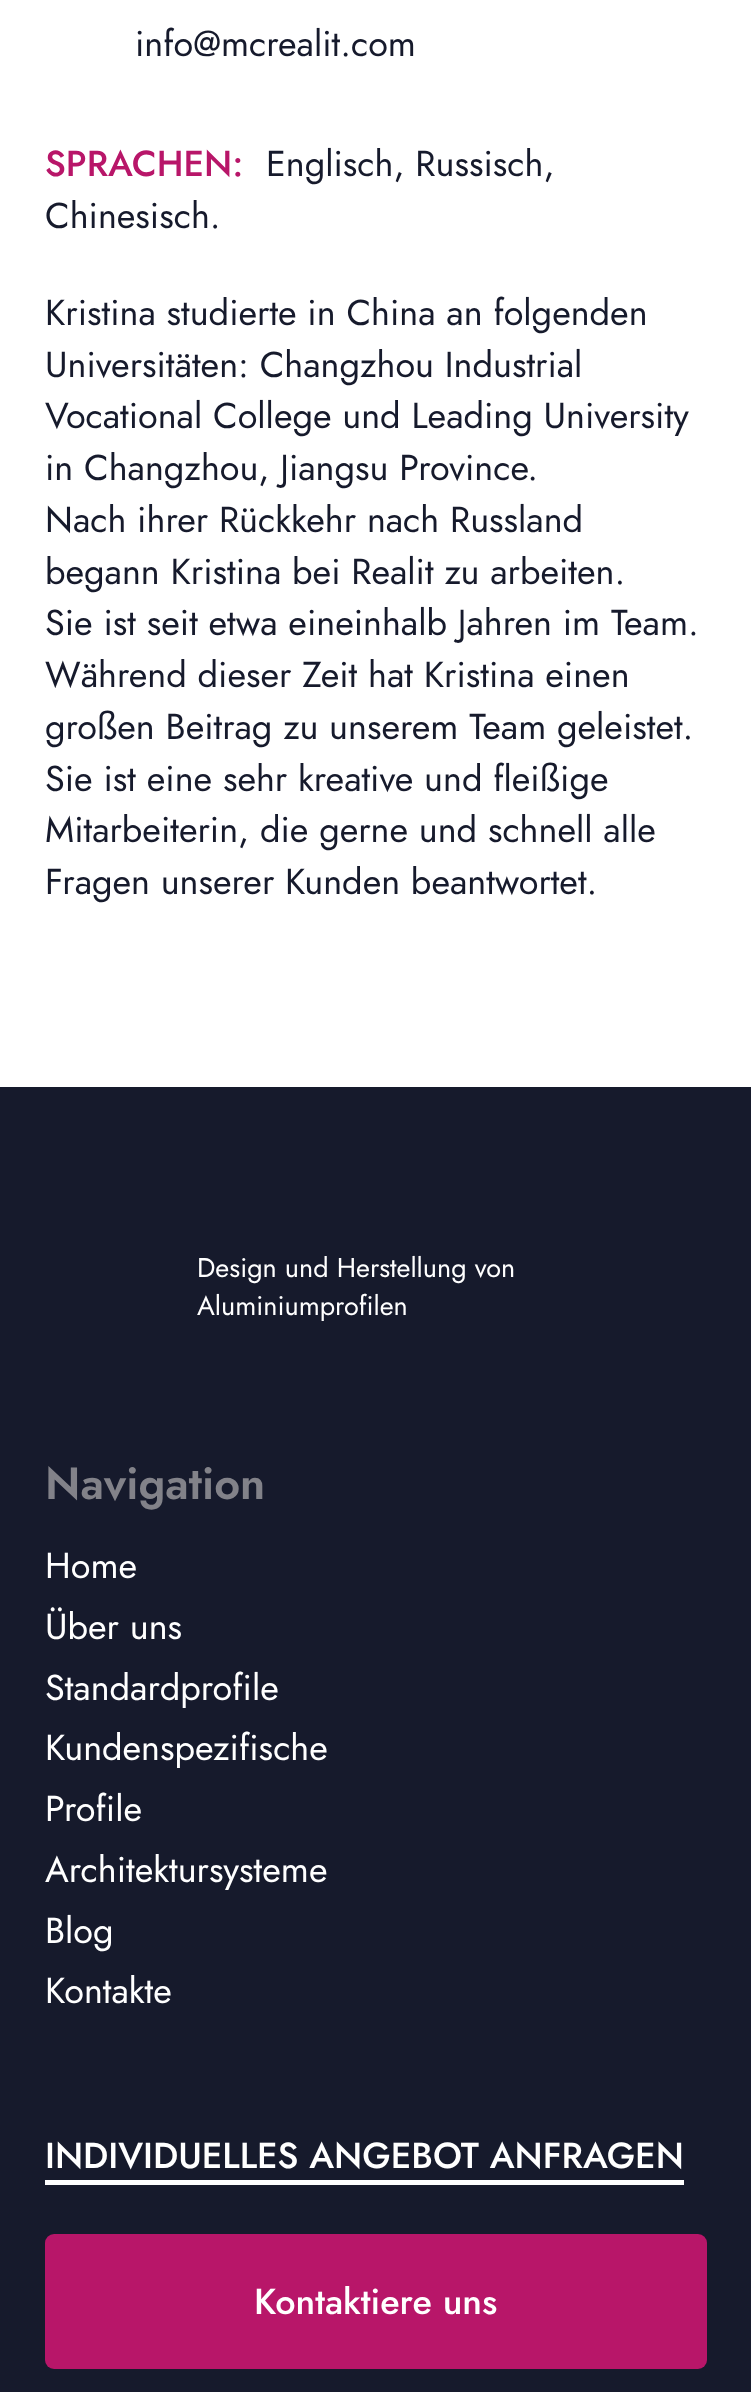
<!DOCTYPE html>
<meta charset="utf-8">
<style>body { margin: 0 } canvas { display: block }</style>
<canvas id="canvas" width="751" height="2392"></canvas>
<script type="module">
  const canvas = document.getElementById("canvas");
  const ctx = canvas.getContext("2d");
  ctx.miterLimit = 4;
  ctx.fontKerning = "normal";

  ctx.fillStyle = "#ffffff";
  ctx.fillRect(0, 0, 751, 2392);
  ctx.font = "36px Jost";
  ctx.fillStyle = "#161a2c";
  ctx.fillText("info@mcrealit.com", 135, 56);
  ctx.font = "500 36px Jost";
  ctx.fillStyle = "#b81669";
  ctx.fillText("SPRACHEN:", 45, 176);
  ctx.font = "36px Jost";
  ctx.fillStyle = "#161a2c";
  ctx.fillText("Englisch, Russisch,", 266, 176);
  ctx.fillText("Chinesisch.", 45, 228);
  ctx.fillText("Kristina studierte in China an folgenden", 45, 325);
  ctx.fillText("Universitäten: Changzhou Industrial", 45, 377);
  ctx.fillText("Vocational College und Leading University", 45, 428);
  ctx.fillText("in Changzhou, Jiangsu Province.", 45, 480);
  ctx.fillText("Nach ihrer Rückkehr nach Russland", 45, 532);
  ctx.fillText("begann Kristina bei Realit zu arbeiten.", 45, 584);
  ctx.fillText("Sie ist seit etwa eineinhalb Jahren im Team.", 45, 635);
  ctx.fillText("Während dieser Zeit hat Kristina einen", 45, 687);
  ctx.fillText("großen Beitrag zu unserem Team geleistet.", 45, 739);
  ctx.fillText("Sie ist eine sehr kreative und fleißige", 45, 791);
  ctx.fillText("Mitarbeiterin, die gerne und schnell alle", 45, 842);
  ctx.fillText("Fragen unserer Kunden beantwortet.", 45, 894);
  ctx.fillRect(0, 1087, 751, 1305);
  ctx.font = "27px Jost";
  ctx.fillStyle = "#ffffff";
  ctx.fillText("Design und Herstellung von", 197, 1277);
  ctx.fillText("Aluminiumprofilen", 197, 1315);
  ctx.font = "600 45px Jost";
  ctx.fillStyle = "#828289";
  ctx.fillText("Navigation", 45, 1499);
  ctx.font = "36px Jost";
  ctx.fillStyle = "#ffffff";
  ctx.fillText("Home", 45, 1578);
  ctx.fillText("Über uns", 45, 1639);
  ctx.fillText("Standardprofile", 45, 1700);
  ctx.fillText("Kundenspezifische", 45, 1760);
  ctx.fillText("Profile", 45, 1821);
  ctx.fillText("Architektursysteme", 45, 1882);
  ctx.fillText("Blog", 45, 1943);
  ctx.fillText("Kontakte", 45, 2003);
  ctx.font = "500 36px Jost";
  ctx.fillText("INDIVIDUELLES ANGEBOT ANFRAGEN", 45, 2168);
  ctx.fillRect(45, 2180, 639, 5);
  ctx.fillStyle = "#b81669";
  ctx.beginPath();
  ctx.roundRect(45, 2234, 662, 135, 9);
  ctx.fill();
  ctx.fillStyle = "#ffffff";
  ctx.fillText("Kontaktiere uns", 254, 2314);
</script>
